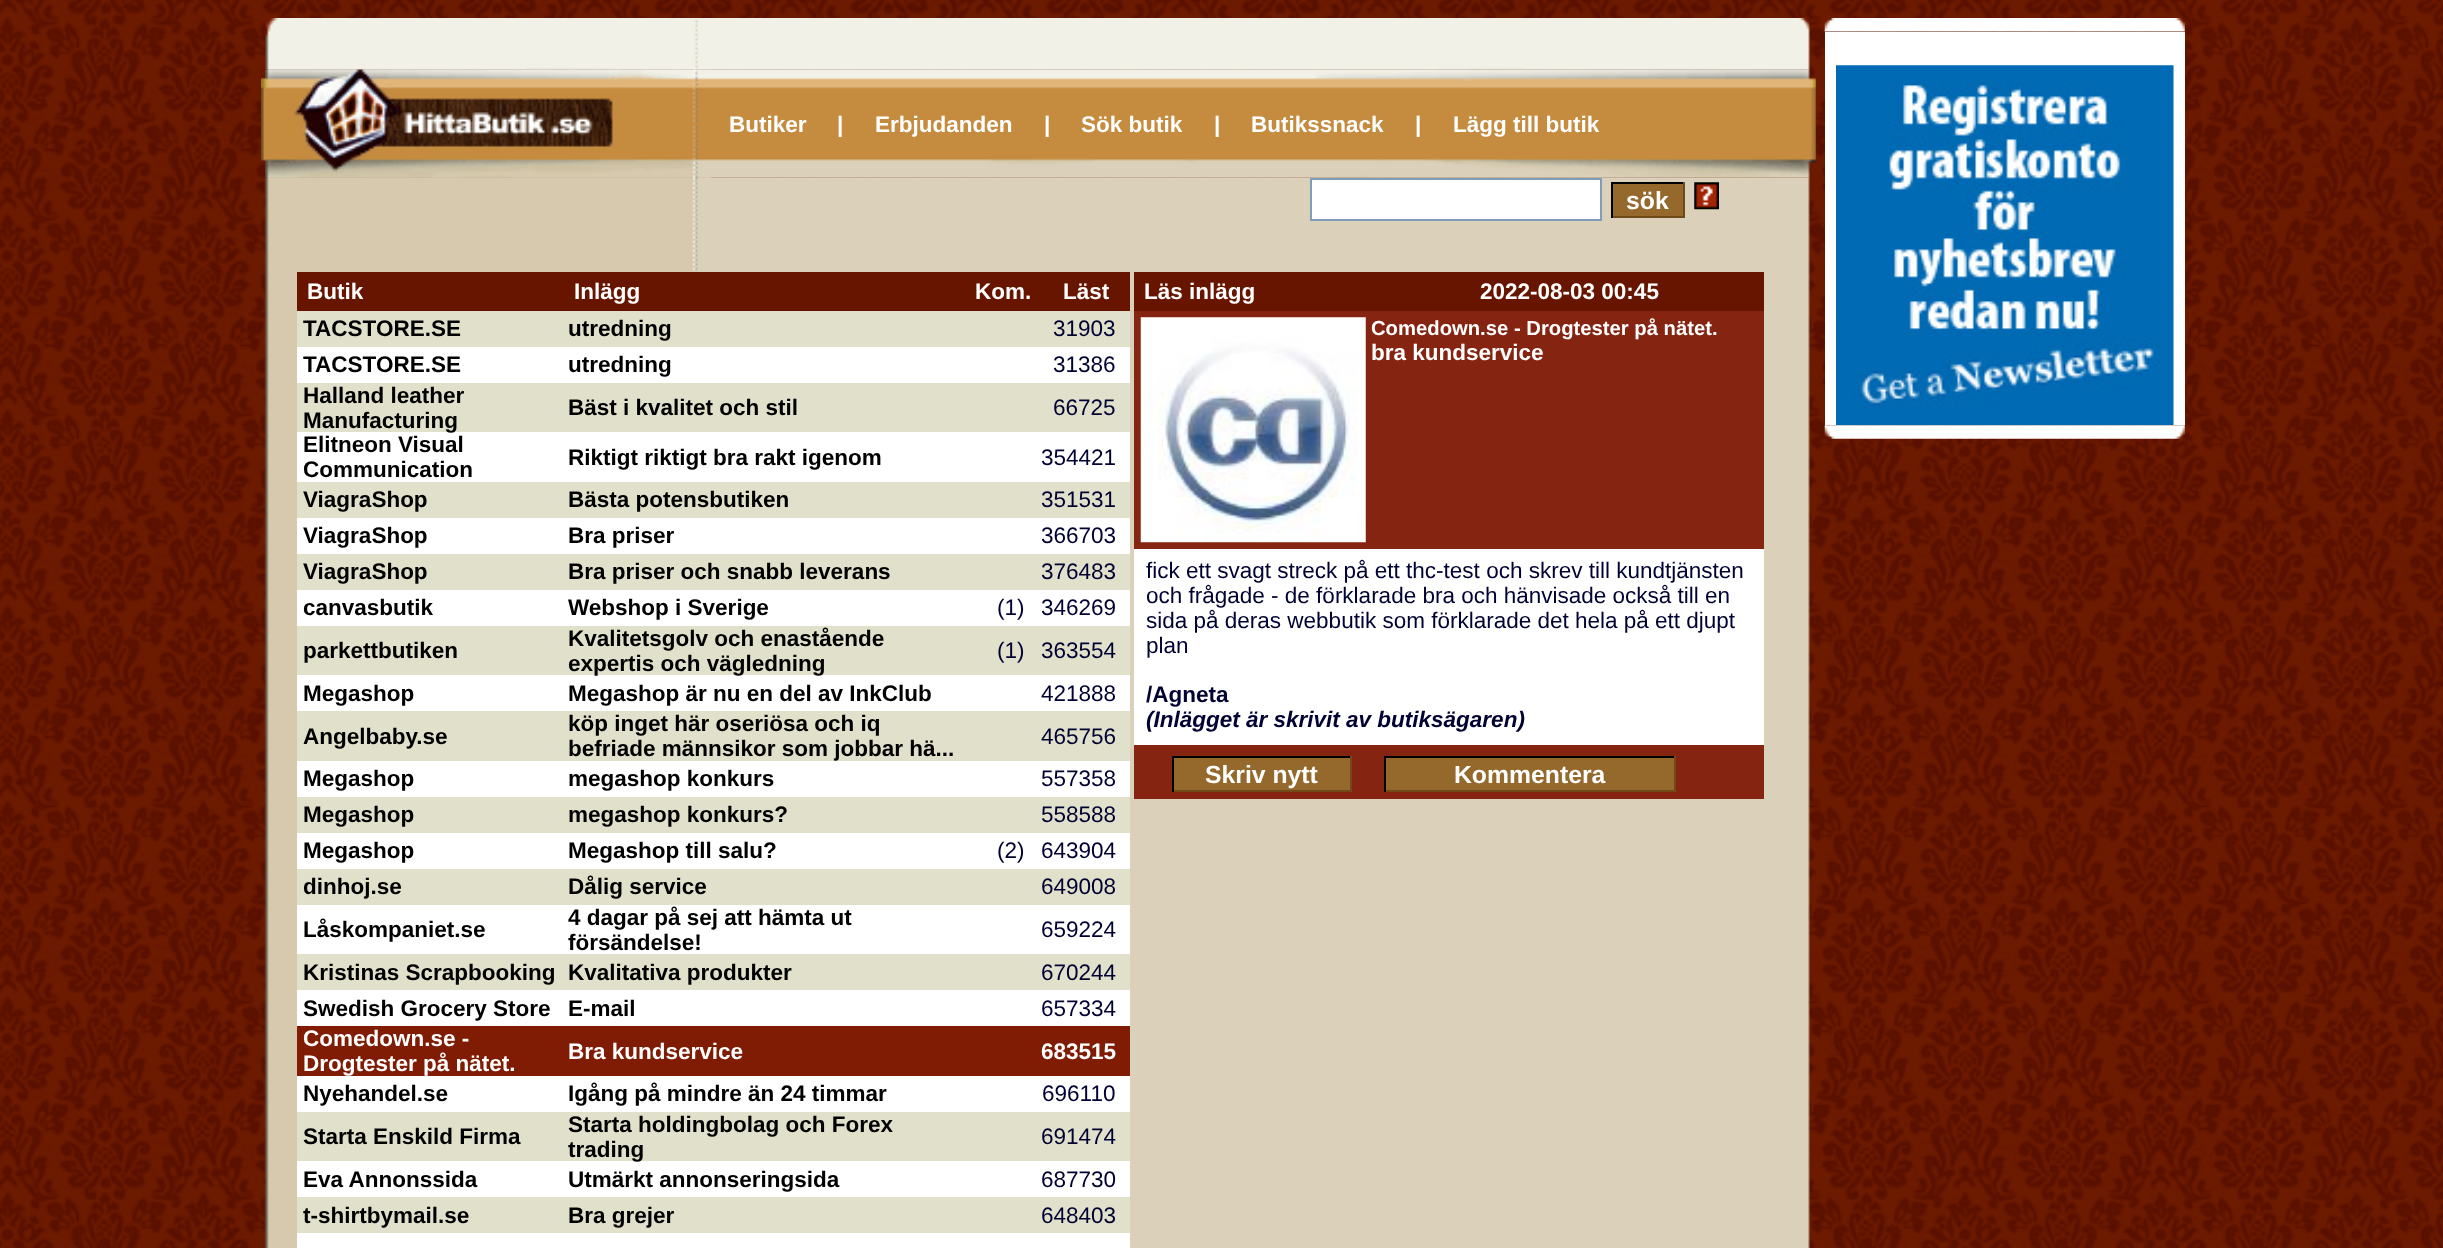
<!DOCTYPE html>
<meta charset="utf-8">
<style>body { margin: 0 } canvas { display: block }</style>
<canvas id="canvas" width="2443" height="1248"></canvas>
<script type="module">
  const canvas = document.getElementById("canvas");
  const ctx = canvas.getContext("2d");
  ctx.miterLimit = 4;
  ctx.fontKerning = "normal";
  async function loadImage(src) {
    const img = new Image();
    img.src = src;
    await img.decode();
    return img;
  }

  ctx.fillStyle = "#ffffff";
  ctx.fillRect(0, 0, 2443, 1248);
  ctx.drawImage(await loadImage("img1.png"), 0, 0, 2443, 1248);
  ctx.drawImage(await loadImage("img2.png"), 265, 18, 1545, 52);
  ctx.drawImage(await loadImage("img3.png"), 261, 69, 1555, 109);
  ctx.drawImage(await loadImage("img5.png"), 264, 177, 1546, 1071);
  ctx.drawImage(await loadImage("img4.png"), 261, 69, 450, 109);
  ctx.font = "bold 22.5px Liberation Sans";
  ctx.fillText("Butiker", 729, 132);
  ctx.fillText("|", 837, 132);
  ctx.fillText("Erbjudanden", 875, 132);
  ctx.fillText("|", 1044, 132);
  ctx.fillText("Sök butik", 1081, 132);
  ctx.fillText("|", 1214, 132);
  ctx.fillText("Butikssnack", 1251, 132);
  ctx.fillText("|", 1415, 132);
  ctx.fillText("Lägg till butik", 1453, 132);
  ctx.beginPath();
  ctx.rect(1311, 179, 290, 41);
  ctx.fill();
  ctx.strokeStyle = "#7f9db9";
  ctx.lineWidth = 2;
  ctx.stroke();
  ctx.fillStyle = "#95682c";
  ctx.fillRect(1613, 184, 70, 32);
  ctx.fillStyle = "#000000";
  ctx.fillRect(1611, 182, 74, 2);
  ctx.fillStyle = "#704b19";
  ctx.fillRect(1683, 182, 2, 36);
  ctx.fillRect(1611, 216, 74, 2);
  ctx.fillStyle = "#000000";
  ctx.fillRect(1611, 182, 2, 36);
  ctx.font = "bold 24.75px Liberation Sans";
  ctx.fillStyle = "#ffffff";
  ctx.fillText("sök", 1626, 209);
  ctx.drawImage(await loadImage("img6.png"), 1694, 182, 25, 28);
  ctx.fillStyle = "#681500";
  ctx.fillRect(297, 272, 833, 39);
  ctx.font = "bold 22.5px Liberation Sans";
  ctx.fillStyle = "#ffffff";
  ctx.fillText("Butik", 307, 299);
  ctx.fillText("Inlägg", 574, 299);
  ctx.fillText("Kom.", 975, 299);
  ctx.fillText("Läst", 1063, 299);
  ctx.fillStyle = "#e1e1cb";
  ctx.fillRect(297, 311, 833, 36);
  ctx.fillStyle = "#000000";
  ctx.fillText("TACSTORE.SE", 303, 336);
  ctx.fillText("utredning", 568, 336);
  ctx.font = "22.5px Liberation Sans";
  ctx.fillStyle = "#000033";
  ctx.fillText("31903", 1053, 336);
  ctx.fillStyle = "#ffffff";
  ctx.fillRect(297, 347, 833, 36);
  ctx.font = "bold 22.5px Liberation Sans";
  ctx.fillStyle = "#000000";
  ctx.fillText("TACSTORE.SE", 303, 372);
  ctx.fillText("utredning", 568, 372);
  ctx.font = "22.5px Liberation Sans";
  ctx.fillStyle = "#000033";
  ctx.fillText("31386", 1053, 372);
  ctx.fillStyle = "#e1e1cb";
  ctx.fillRect(297, 383, 833, 49);
  ctx.font = "bold 22.5px Liberation Sans";
  ctx.fillStyle = "#000000";
  ctx.fillText("Halland leather", 303, 403);
  ctx.fillStyle = "#ffffff";
  ctx.fillRect(297, 432, 833, 50);
  ctx.fillStyle = "#000000";
  ctx.fillText("Manufacturing", 303, 428);
  ctx.fillText("Bäst i kvalitet och stil", 568, 415);
  ctx.font = "22.5px Liberation Sans";
  ctx.fillStyle = "#000033";
  ctx.fillText("66725", 1053, 415);
  ctx.font = "bold 22.5px Liberation Sans";
  ctx.fillStyle = "#000000";
  ctx.fillText("Elitneon Visual", 303, 452);
  ctx.fillText("Communication", 303, 477);
  ctx.fillText("Riktigt riktigt bra rakt igenom", 568, 465);
  ctx.font = "22.5px Liberation Sans";
  ctx.fillStyle = "#000033";
  ctx.fillText("354421", 1041, 465);
  ctx.fillStyle = "#e1e1cb";
  ctx.fillRect(297, 482, 833, 36);
  ctx.font = "bold 22.5px Liberation Sans";
  ctx.fillStyle = "#000000";
  ctx.fillText("ViagraShop", 303, 507);
  ctx.fillText("Bästa potensbutiken", 568, 507);
  ctx.font = "22.5px Liberation Sans";
  ctx.fillStyle = "#000033";
  ctx.fillText("351531", 1041, 507);
  ctx.fillStyle = "#ffffff";
  ctx.fillRect(297, 518, 833, 36);
  ctx.font = "bold 22.5px Liberation Sans";
  ctx.fillStyle = "#000000";
  ctx.fillText("ViagraShop", 303, 543);
  ctx.fillText("Bra priser", 568, 543);
  ctx.font = "22.5px Liberation Sans";
  ctx.fillStyle = "#000033";
  ctx.fillText("366703", 1041, 543);
  ctx.fillStyle = "#e1e1cb";
  ctx.fillRect(297, 554, 833, 36);
  ctx.font = "bold 22.5px Liberation Sans";
  ctx.fillStyle = "#000000";
  ctx.fillText("ViagraShop", 303, 579);
  ctx.fillText("Bra priser och snabb leverans", 568, 579);
  ctx.font = "22.5px Liberation Sans";
  ctx.fillStyle = "#000033";
  ctx.fillText("376483", 1041, 579);
  ctx.fillStyle = "#ffffff";
  ctx.fillRect(297, 590, 833, 36);
  ctx.font = "bold 22.5px Liberation Sans";
  ctx.fillStyle = "#000000";
  ctx.fillText("canvasbutik", 303, 615);
  ctx.fillText("Webshop i Sverige", 568, 615);
  ctx.font = "22.5px Liberation Sans";
  ctx.fillStyle = "#000033";
  ctx.fillText("(1)", 997, 615);
  ctx.fillText("346269", 1041, 615);
  ctx.fillStyle = "#e1e1cb";
  ctx.fillRect(297, 626, 833, 49);
  ctx.font = "bold 22.5px Liberation Sans";
  ctx.fillStyle = "#000000";
  ctx.fillText("parkettbutiken", 303, 658);
  ctx.fillText("Kvalitetsgolv och enastående", 568, 646);
  ctx.fillStyle = "#ffffff";
  ctx.fillRect(297, 675, 833, 36);
  ctx.fillStyle = "#000000";
  ctx.fillText("expertis och vägledning", 568, 671);
  ctx.font = "22.5px Liberation Sans";
  ctx.fillStyle = "#000033";
  ctx.fillText("(1)", 997, 658);
  ctx.fillText("363554", 1041, 658);
  ctx.font = "bold 22.5px Liberation Sans";
  ctx.fillStyle = "#000000";
  ctx.fillText("Megashop", 303, 701);
  ctx.fillText("Megashop är nu en del av InkClub", 568, 701);
  ctx.font = "22.5px Liberation Sans";
  ctx.fillStyle = "#000033";
  ctx.fillText("421888", 1041, 701);
  ctx.fillStyle = "#e1e1cb";
  ctx.fillRect(297, 711, 833, 50);
  ctx.font = "bold 22.5px Liberation Sans";
  ctx.fillStyle = "#000000";
  ctx.fillText("Angelbaby.se", 303, 744);
  ctx.fillText("köp inget här oseriösa och iq", 568, 731);
  ctx.fillText("befriade männsikor som jobbar hä...", 568, 756);
  ctx.font = "22.5px Liberation Sans";
  ctx.fillStyle = "#000033";
  ctx.fillText("465756", 1041, 744);
  ctx.fillStyle = "#ffffff";
  ctx.fillRect(297, 761, 833, 36);
  ctx.font = "bold 22.5px Liberation Sans";
  ctx.fillStyle = "#000000";
  ctx.fillText("Megashop", 303, 786);
  ctx.fillText("megashop konkurs", 568, 786);
  ctx.font = "22.5px Liberation Sans";
  ctx.fillStyle = "#000033";
  ctx.fillText("557358", 1041, 786);
  ctx.fillStyle = "#e1e1cb";
  ctx.fillRect(297, 797, 833, 36);
  ctx.font = "bold 22.5px Liberation Sans";
  ctx.fillStyle = "#000000";
  ctx.fillText("Megashop", 303, 822);
  ctx.fillText("megashop konkurs?", 568, 822);
  ctx.font = "22.5px Liberation Sans";
  ctx.fillStyle = "#000033";
  ctx.fillText("558588", 1041, 822);
  ctx.fillStyle = "#ffffff";
  ctx.fillRect(297, 833, 833, 36);
  ctx.font = "bold 22.5px Liberation Sans";
  ctx.fillStyle = "#000000";
  ctx.fillText("Megashop", 303, 858);
  ctx.fillText("Megashop till salu?", 568, 858);
  ctx.font = "22.5px Liberation Sans";
  ctx.fillStyle = "#000033";
  ctx.fillText("(2)", 997, 858);
  ctx.fillText("643904", 1041, 858);
  ctx.fillStyle = "#e1e1cb";
  ctx.fillRect(297, 869, 833, 36);
  ctx.font = "bold 22.5px Liberation Sans";
  ctx.fillStyle = "#000000";
  ctx.fillText("dinhoj.se", 303, 894);
  ctx.fillText("Dålig service", 568, 894);
  ctx.font = "22.5px Liberation Sans";
  ctx.fillStyle = "#000033";
  ctx.fillText("649008", 1041, 894);
  ctx.fillStyle = "#ffffff";
  ctx.fillRect(297, 905, 833, 49);
  ctx.font = "bold 22.5px Liberation Sans";
  ctx.fillStyle = "#000000";
  ctx.fillText("Låskompaniet.se", 303, 937);
  ctx.fillText("4 dagar på sej att hämta ut", 568, 925);
  ctx.fillText("försändelse!", 568, 950);
  ctx.font = "22.5px Liberation Sans";
  ctx.fillStyle = "#000033";
  ctx.fillText("659224", 1041, 937);
  ctx.fillStyle = "#e1e1cb";
  ctx.fillRect(297, 954, 833, 36);
  ctx.font = "bold 22.5px Liberation Sans";
  ctx.fillStyle = "#000000";
  ctx.fillText("Kristinas Scrapbooking", 303, 980);
  ctx.fillText("Kvalitativa produkter", 568, 980);
  ctx.font = "22.5px Liberation Sans";
  ctx.fillStyle = "#000033";
  ctx.fillText("670244", 1041, 980);
  ctx.fillStyle = "#ffffff";
  ctx.fillRect(297, 990, 833, 36);
  ctx.font = "bold 22.5px Liberation Sans";
  ctx.fillStyle = "#000000";
  ctx.fillText("Swedish Grocery Store", 303, 1016);
  ctx.fillText("E-mail", 568, 1016);
  ctx.font = "22.5px Liberation Sans";
  ctx.fillStyle = "#000033";
  ctx.fillText("657334", 1041, 1016);
  ctx.fillStyle = "#801b04";
  ctx.fillRect(297, 1026, 833, 50);
  ctx.font = "bold 22.5px Liberation Sans";
  ctx.fillStyle = "#ffffff";
  ctx.fillText("Comedown.se -", 303, 1046);
  ctx.fillText("Drogtester på nätet.", 303, 1071);
  ctx.fillText("Bra kundservice", 568, 1059);
  ctx.fillText("683515", 1041, 1059);
  ctx.fillRect(297, 1076, 833, 36);
  ctx.fillStyle = "#000000";
  ctx.fillText("Nyehandel.se", 303, 1101);
  ctx.fillText("Igång på mindre än 24 timmar", 568, 1101);
  ctx.font = "22.5px Liberation Sans";
  ctx.fillStyle = "#000033";
  ctx.fillText("696110", 1042, 1101);
  ctx.fillStyle = "#e1e1cb";
  ctx.fillRect(297, 1112, 833, 49);
  ctx.font = "bold 22.5px Liberation Sans";
  ctx.fillStyle = "#000000";
  ctx.fillText("Starta Enskild Firma", 303, 1144);
  ctx.fillText("Starta holdingbolag och Forex", 568, 1132);
  ctx.fillStyle = "#ffffff";
  ctx.fillRect(297, 1161, 833, 36);
  ctx.fillStyle = "#000000";
  ctx.fillText("trading", 568, 1157);
  ctx.font = "22.5px Liberation Sans";
  ctx.fillStyle = "#000033";
  ctx.fillText("691474", 1041, 1144);
  ctx.font = "bold 22.5px Liberation Sans";
  ctx.fillStyle = "#000000";
  ctx.fillText("Eva Annonssida", 303, 1187);
  ctx.fillText("Utmärkt annonseringsida", 568, 1187);
  ctx.font = "22.5px Liberation Sans";
  ctx.fillStyle = "#000033";
  ctx.fillText("687730", 1041, 1187);
  ctx.fillStyle = "#e1e1cb";
  ctx.fillRect(297, 1197, 833, 36);
  ctx.font = "bold 22.5px Liberation Sans";
  ctx.fillStyle = "#000000";
  ctx.fillText("t-shirtbymail.se", 303, 1223);
  ctx.fillText("Bra grejer", 568, 1223);
  ctx.font = "22.5px Liberation Sans";
  ctx.fillStyle = "#000033";
  ctx.fillText("648403", 1041, 1223);
  ctx.fillStyle = "#ffffff";
  ctx.fillRect(297, 1233, 833, 15);
  ctx.fillStyle = "#681500";
  ctx.fillRect(1134, 272, 630, 39);
  ctx.font = "bold 22.5px Liberation Sans";
  ctx.fillStyle = "#ffffff";
  ctx.fillText("Läs inlägg", 1144, 299);
  ctx.fillText("2022-08-03 00:45", 1480, 299);
  ctx.fillStyle = "#852511";
  ctx.fillRect(1134, 311, 630, 238);
  ctx.drawImage(await loadImage("img7.png"), 1140, 317, 226, 226);
  ctx.font = "bold 20.25px Liberation Sans";
  ctx.fillStyle = "#ffffff";
  ctx.fillText("Comedown.se - Drogtester på nätet.", 1371, 335);
  ctx.font = "bold 22.5px Liberation Sans";
  ctx.fillText("bra kundservice", 1371, 360);
  ctx.fillRect(1134, 549, 630, 196);
  ctx.font = "22.5px Liberation Sans";
  ctx.fillStyle = "#000033";
  ctx.fillText("fick ett svagt streck på ett thc-test och skrev till kundtjänsten", 1146, 578);
  ctx.fillText("och frågade - de förklarade bra och hänvisade också till en", 1146, 603);
  ctx.fillText("sida på deras webbutik som förklarade det hela på ett djupt", 1146, 628);
  ctx.fillText("plan", 1146, 653);
  ctx.font = "bold 22.5px Liberation Sans";
  ctx.fillText("/Agneta", 1146, 702);
  ctx.font = "italic bold 22.5px Liberation Sans";
  ctx.fillText("(Inlägget är skrivit av butiksägaren)", 1146, 727);
  ctx.fillStyle = "#852511";
  ctx.fillRect(1134, 745, 630, 54);
  ctx.fillStyle = "#95682c";
  ctx.fillRect(1174, 758, 176, 32);
  ctx.fillStyle = "#000000";
  ctx.fillRect(1172, 756, 180, 2);
  ctx.fillStyle = "#704b19";
  ctx.fillRect(1350, 756, 2, 36);
  ctx.fillRect(1172, 790, 180, 2);
  ctx.fillStyle = "#000000";
  ctx.fillRect(1172, 756, 2, 36);
  ctx.font = "bold 24.75px Liberation Sans";
  ctx.fillStyle = "#ffffff";
  ctx.fillText("Skriv nytt", 1205, 783);
  ctx.fillStyle = "#95682c";
  ctx.fillRect(1386, 758, 288, 32);
  ctx.fillStyle = "#000000";
  ctx.fillRect(1384, 756, 292, 2);
  ctx.fillStyle = "#704b19";
  ctx.fillRect(1674, 756, 2, 36);
  ctx.fillRect(1384, 790, 292, 2);
  ctx.fillStyle = "#000000";
  ctx.fillRect(1384, 756, 2, 36);
  ctx.fillStyle = "#ffffff";
  ctx.fillText("Kommentera", 1454, 783);
  ctx.drawImage(await loadImage("img8.png"), 1824, 18, 361, 14);
  ctx.fillRect(1825, 32, 360, 393);
  ctx.drawImage(await loadImage("img9.png"), 1836, 65, 338, 361);
  ctx.drawImage(await loadImage("img10.png"), 1824, 425, 361, 14);
</script>
